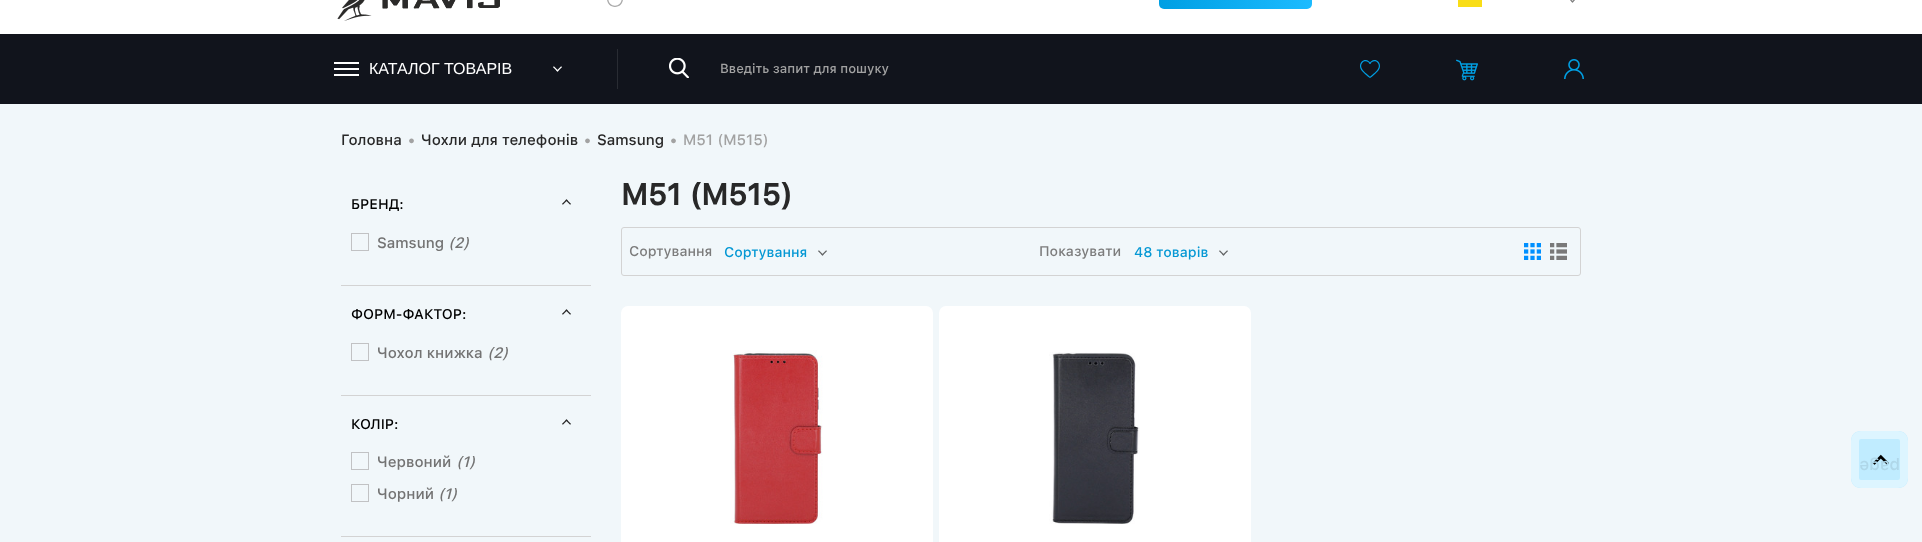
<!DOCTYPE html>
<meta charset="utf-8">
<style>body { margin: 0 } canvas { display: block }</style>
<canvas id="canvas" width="1922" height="542"></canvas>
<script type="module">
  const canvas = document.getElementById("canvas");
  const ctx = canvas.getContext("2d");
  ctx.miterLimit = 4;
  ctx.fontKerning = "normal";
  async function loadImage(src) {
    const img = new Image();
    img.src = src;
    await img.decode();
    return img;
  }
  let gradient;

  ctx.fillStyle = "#f1f7fa";
  ctx.fillRect(0, 0, 1922, 542);
  ctx.fillStyle = "#ffffff";
  ctx.fillRect(0, 0, 1922, 34);
  ctx.drawImage(await loadImage("img1.png"), 337, 0, 163, 21);
  ctx.drawImage(await loadImage("img2.png"), 607, 0, 16, 7);
  gradient = ctx.createLinearGradient(1159, -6.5, 1312, -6.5);
  gradient.addColorStop(0, "#009fe3");
  gradient.addColorStop(1, "#1cbbff");
  ctx.fillStyle = gradient;
  ctx.beginPath();
  ctx.roundRect(1159, -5, 153, 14, 5);
  ctx.fill();
  ctx.fillStyle = "#f9dd16";
  ctx.fillRect(1458, 0, 24, 7);
  ctx.drawImage(await loadImage("img3.png"), 1570, 0, 5, 3);
  ctx.fillStyle = "#11141c";
  ctx.fillRect(0, 34, 1922, 70);
  ctx.fillStyle = "#292c33";
  ctx.fillRect(617, 49, 1, 40);
  ctx.fillStyle = "#ffffff";
  ctx.fillRect(334, 62, 25, 2);
  ctx.fillRect(334, 74, 25, 2);
  ctx.fillRect(334, 68, 25, 2);
  ctx.font = "16px Liberation Sans";
  ctx.fillText("КАТАЛОГ ТОВАРІВ", 369, 74);
  ctx.drawImage(await loadImage("img4.png"), 553, 66, 9, 6);
  ctx.drawImage(await loadImage("img5.png"), 669, 58, 20, 20);
  ctx.font = "500 13px SF Pro Text";
  ctx.fillStyle = "#a2a2a2";
  ctx.fillText("Введіть запит для пошуку", 720, 73);
  ctx.drawImage(await loadImage("img6.png"), 1360, 60, 20, 18);
  ctx.drawImage(await loadImage("img7.png"), 1456, 59, 22, 22);
  ctx.drawImage(await loadImage("img8.png"), 1564, 59, 20, 20);
  ctx.font = "500 15px SF Pro Text";
  ctx.fillStyle = "#282828";
  ctx.fillText("Головна", 341, 145);
  ctx.fillStyle = "#a2a2a2";
  ctx.fillText("•", 408, 145);
  ctx.fillStyle = "#282828";
  ctx.fillText("Чохли для телефонів", 421, 145);
  ctx.fillStyle = "#a2a2a2";
  ctx.fillText("•", 584, 145);
  ctx.fillStyle = "#282828";
  ctx.fillText("Samsung", 597, 145);
  ctx.fillStyle = "#a2a2a2";
  ctx.fillText("•", 670, 145);
  ctx.fillText("M51 (M515)", 683, 145);
  ctx.fillStyle = "#d3d3d3";
  ctx.fillRect(341, 285, 250, 1);
  ctx.font = "500 14px SF Pro Text";
  ctx.fillStyle = "#000000";
  ctx.fillText("БРЕНД:", 351, 209);
  ctx.drawImage(await loadImage("img9.png"), 562, 199, 9, 6);
  ctx.strokeStyle = "#c1c2c4";
  ctx.strokeRect(351.5, 233.5, 17, 17);
  ctx.font = "500 15px SF Pro Text";
  ctx.fillStyle = "#737373";
  ctx.fillText("Samsung", 377, 248);
  ctx.font = "italic 500 15px SF Pro Text";
  ctx.fillText("(2)", 448, 248);
  ctx.fillStyle = "#d3d3d3";
  ctx.fillRect(341, 395, 250, 1);
  ctx.font = "500 14px SF Pro Text";
  ctx.fillStyle = "#000000";
  ctx.fillText("ФОРМ-ФАКТОР:", 351, 319);
  ctx.drawImage(await loadImage("img9.png"), 562, 309, 9, 6);
  ctx.strokeRect(351.5, 343.5, 17, 17);
  ctx.font = "500 15px SF Pro Text";
  ctx.fillStyle = "#737373";
  ctx.fillText("Чохол книжка", 377, 358);
  ctx.font = "italic 500 15px SF Pro Text";
  ctx.fillText("(2)", 487, 358);
  ctx.fillStyle = "#d3d3d3";
  ctx.fillRect(341, 536, 250, 1);
  ctx.font = "500 14px SF Pro Text";
  ctx.fillStyle = "#000000";
  ctx.fillText("КОЛІР:", 351, 429);
  ctx.drawImage(await loadImage("img9.png"), 562, 419, 9, 6);
  ctx.strokeRect(351.5, 452.5, 17, 17);
  ctx.font = "500 15px SF Pro Text";
  ctx.fillStyle = "#737373";
  ctx.fillText("Червоний", 377, 467);
  ctx.font = "italic 500 15px SF Pro Text";
  ctx.fillText("(1)", 456, 467);
  ctx.strokeRect(351.5, 484.5, 17, 17);
  ctx.font = "500 15px SF Pro Text";
  ctx.fillText("Чорний", 377, 499);
  ctx.font = "italic 500 15px SF Pro Text";
  ctx.fillText("(1)", 438, 499);
  ctx.font = "bold 30px SF Pro Text";
  ctx.fillStyle = "#282828";
  ctx.fillText("M51 (M515)", 621, 205);
  ctx.beginPath();
  ctx.roundRect(621.5, 227.5, 959, 48, 2.5);
  ctx.strokeStyle = "#d3d3d3";
  ctx.stroke();
  ctx.font = "500 14px SF Pro Text";
  ctx.fillStyle = "#7c7c7c";
  ctx.fillText("Сортування", 629, 256);
  ctx.fillStyle = "#0598d4";
  ctx.fillText("Сортування", 724, 257);
  ctx.drawImage(await loadImage("img10.png"), 818, 250, 9, 6);
  ctx.fillStyle = "#7c7c7c";
  ctx.fillText("Показувати", 1039, 256);
  ctx.fillStyle = "#0598d4";
  ctx.fillText("48 товарів", 1134, 257);
  ctx.drawImage(await loadImage("img10.png"), 1219, 250, 9, 6);
  ctx.drawImage(await loadImage("img11.png"), 1524, 243, 17, 17);
  ctx.drawImage(await loadImage("img12.png"), 1550, 243, 17, 17);
  ctx.fillStyle = "#ffffff";
  ctx.beginPath();
  ctx.roundRect(621, 306, 312, 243, 7);
  ctx.fill();
  ctx.drawImage(await loadImage("img13.png"), 730, 350, 93, 174);
  ctx.beginPath();
  ctx.roundRect(939, 306, 312, 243, 7);
  ctx.fill();
  ctx.drawImage(await loadImage("img14.png"), 1049, 352, 91, 172);
  ctx.fillStyle = "#c0ecff";
  ctx.beginPath();
  ctx.moveTo(1898, 488);
  ctx.lineTo(1861, 488);
  ctx.bezierCurveTo(1855, 488, 1851, 484, 1851, 478);
  ctx.lineTo(1851, 441);
  ctx.bezierCurveTo(1851, 435, 1855, 431, 1861, 431);
  ctx.lineTo(1898, 431);
  ctx.bezierCurveTo(1904, 431, 1908, 435, 1908, 441);
  ctx.lineTo(1908, 478);
  ctx.bezierCurveTo(1908, 484, 1904, 488, 1898, 488);
  ctx.closePath();
  ctx.fill();
  ctx.drawImage(await loadImage("img15.png"), 1872, 454, 17, 11);
  ctx.beginPath();
  ctx.moveTo(1898, 484);
  ctx.lineTo(1861, 484);
  ctx.bezierCurveTo(1857.5, 484, 1855, 481.5, 1855, 478);
  ctx.lineTo(1855, 441);
  ctx.bezierCurveTo(1855, 437.5, 1857.5, 435, 1861, 435);
  ctx.lineTo(1898, 435);
  ctx.bezierCurveTo(1901.5, 435, 1904, 437.5, 1904, 441);
  ctx.lineTo(1904, 478);
  ctx.bezierCurveTo(1904, 481.5, 1901.5, 484, 1898, 484);
  ctx.closePath();
  ctx.strokeStyle = "#ddf5ff";
  ctx.lineWidth = 8;
  ctx.stroke();
  ctx.font = "500 17px SF Pro Text";
  ctx.fillStyle = "#afd7e9";
  ctx.save();
  ctx.translate(1900, 461);
  ctx.rotate(180 * Math.PI / 180);
  ctx.fillText("page", 0, 0);
  ctx.restore();
</script>
